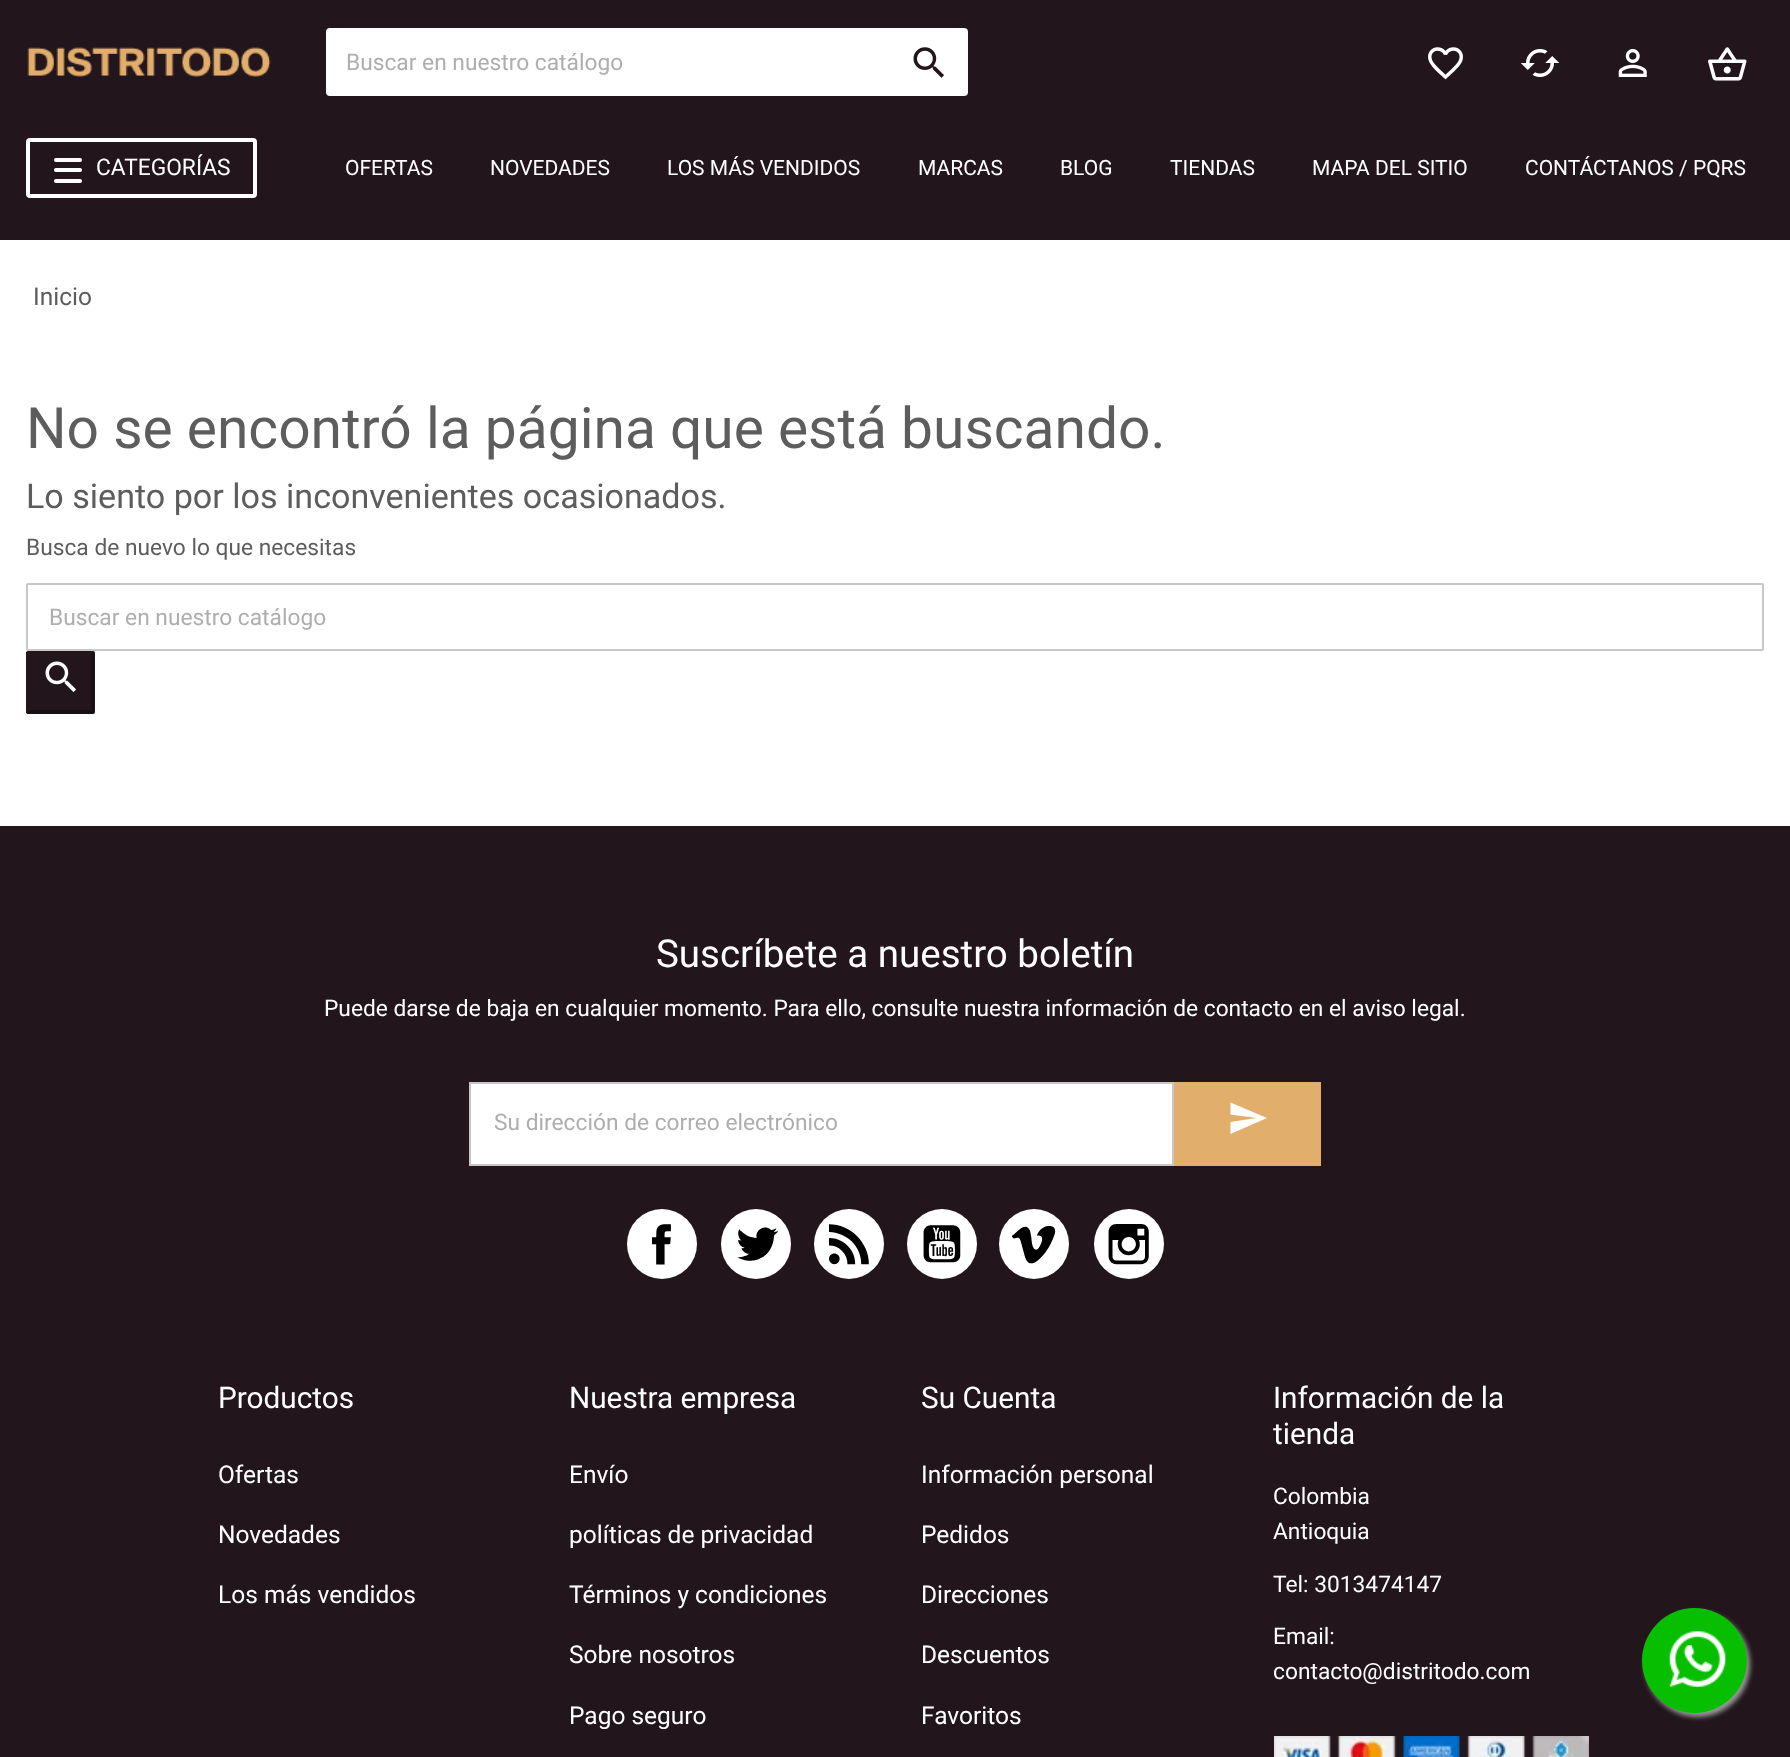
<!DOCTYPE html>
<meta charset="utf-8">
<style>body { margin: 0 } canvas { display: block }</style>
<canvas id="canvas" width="1790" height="1757"></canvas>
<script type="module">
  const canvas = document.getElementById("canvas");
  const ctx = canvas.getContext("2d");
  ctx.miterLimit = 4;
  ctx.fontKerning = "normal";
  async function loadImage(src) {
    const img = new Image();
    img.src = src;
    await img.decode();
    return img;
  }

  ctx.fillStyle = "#ffffff";
  ctx.fillRect(0, 0, 1790, 1757);
  ctx.fillStyle = "#22161c";
  ctx.fillRect(0, 0, 1790, 240);
  ctx.drawImage(await loadImage("img1.png"), 27, 47, 244, 30);
  ctx.fillStyle = "#ffffff";
  ctx.beginPath();
  ctx.roundRect(326, 28, 642, 68, 4);
  ctx.fill();
  ctx.font = "22.75px Roboto";
  ctx.fillStyle = "#aeaeae";
  ctx.fillText("Buscar en nuestro catálogo", 346, 70);
  ctx.drawImage(await loadImage("img2.png"), 913, 47, 31, 31);
  ctx.drawImage(await loadImage("img3.png"), 1428, 47, 35, 33);
  ctx.drawImage(await loadImage("img4.png"), 1520, 49, 40, 28);
  ctx.drawImage(await loadImage("img5.png"), 1618, 49, 29, 28);
  ctx.drawImage(await loadImage("img6.png"), 1708, 47, 39, 34);
  ctx.beginPath();
  ctx.roundRect(28, 140, 227, 56, 2);
  ctx.strokeStyle = "#ffffff";
  ctx.lineWidth = 4;
  ctx.stroke();
  ctx.fillStyle = "#ffffff";
  ctx.beginPath();
  ctx.roundRect(54, 158, 28, 4, 2);
  ctx.fill();
  ctx.beginPath();
  ctx.roundRect(54, 168, 28, 4, 2);
  ctx.fill();
  ctx.beginPath();
  ctx.roundRect(54, 179, 28, 4, 2);
  ctx.fill();
  ctx.fillText("CATEGORÍAS", 96, 175);
  ctx.font = "21px Roboto";
  ctx.fillText("OFERTAS", 345, 175);
  ctx.fillText("NOVEDADES", 490, 175);
  ctx.fillText("LOS MÁS VENDIDOS", 667, 175);
  ctx.fillText("MARCAS", 918, 175);
  ctx.fillText("BLOG", 1060, 175);
  ctx.fillText("TIENDAS", 1170, 175);
  ctx.fillText("MAPA DEL SITIO", 1312, 175);
  ctx.fillText("CONTÁCTANOS / PQRS", 1525, 175);
  ctx.font = "24.5px Roboto";
  ctx.fillStyle = "#5d5d5d";
  ctx.fillText("Inicio", 33, 305);
  ctx.font = "56.9px Roboto";
  ctx.fillText("No se encontró la página que está buscando.", 26, 448);
  ctx.font = "34.1px Roboto";
  ctx.fillText("Lo siento por los inconvenientes ocasionados.", 26, 508);
  ctx.font = "22.75px Roboto";
  ctx.fillText("Busca de nuevo lo que necesitas", 26, 555);
  ctx.beginPath();
  ctx.roundRect(27, 584, 1736, 66, 1);
  ctx.strokeStyle = "#c7c7c7";
  ctx.lineWidth = 2;
  ctx.stroke();
  ctx.fillStyle = "#aeaeae";
  ctx.fillText("Buscar en nuestro catálogo", 49, 625);
  ctx.fillStyle = "#22161c";
  ctx.beginPath();
  ctx.roundRect(26, 651, 69, 63, 2);
  ctx.fill();
  ctx.beginPath();
  ctx.moveTo(28, 651);
  ctx.lineTo(27, 652);
  ctx.lineTo(30, 655);
  ctx.lineTo(30, 654);
  ctx.lineTo(91, 654);
  ctx.lineTo(94, 652);
  ctx.lineTo(93, 651);
  ctx.closePath();
  ctx.fill();
  ctx.fillStyle = "#170f13";
  ctx.beginPath();
  ctx.moveTo(94, 652);
  ctx.bezierCurveTo(94, 652, 94, 713, 94, 713);
  ctx.lineTo(90, 710);
  ctx.lineTo(91, 710);
  ctx.lineTo(91, 654);
  ctx.closePath();
  ctx.fill();
  ctx.beginPath();
  ctx.moveTo(28, 714);
  ctx.lineTo(93, 714);
  ctx.lineTo(94, 713);
  ctx.lineTo(90, 710);
  ctx.lineTo(30, 710);
  ctx.lineTo(27, 713);
  ctx.closePath();
  ctx.fill();
  ctx.fillStyle = "#22161c";
  ctx.beginPath();
  ctx.moveTo(26, 652);
  ctx.lineTo(27, 652);
  ctx.lineTo(30, 655);
  ctx.lineTo(30, 710);
  ctx.lineTo(27, 713);
  ctx.lineTo(26, 713);
  ctx.closePath();
  ctx.fill();
  ctx.drawImage(await loadImage("img7.png"), 45, 661, 31, 31);
  ctx.fillRect(0, 826, 1790, 931);
  ctx.font = "38.5px Roboto";
  ctx.fillStyle = "#ffffff";
  ctx.fillText("Suscríbete a nuestro boletín", 656, 967);
  ctx.font = "22.75px Roboto";
  ctx.fillText("Puede darse de baja en cualquier momento. Para ello, consulte nuestra información de contacto en el aviso legal.", 324, 1016);
  ctx.beginPath();
  ctx.rect(470, 1083, 703, 82);
  ctx.fill();
  ctx.stroke();
  ctx.fillStyle = "#aeaeae";
  ctx.fillText("Su dirección de correo electrónico", 494, 1130);
  ctx.fillStyle = "#e2ae6c";
  ctx.fillRect(1174, 1082, 147, 84);
  ctx.fillStyle = "#ffffff";
  ctx.beginPath();
  ctx.moveTo(1230.5, 1134);
  ctx.lineTo(1230.5, 1122);
  ctx.lineTo(1256.5, 1118);
  ctx.lineTo(1230.5, 1114.5);
  ctx.lineTo(1230.5, 1102.5);
  ctx.lineTo(1267, 1118);
  ctx.closePath();
  ctx.fill();
  ctx.beginPath();
  ctx.arc(662, 1244, 35, 0, Math.PI * 2);
  ctx.fill();
  ctx.drawImage(await loadImage("img8.png"), 652, 1224, 19, 41);
  ctx.beginPath();
  ctx.arc(756, 1244, 35, 0, Math.PI * 2);
  ctx.fill();
  ctx.drawImage(await loadImage("img9.png"), 737, 1227, 41, 34);
  ctx.beginPath();
  ctx.arc(849, 1244, 35, 0, Math.PI * 2);
  ctx.fill();
  ctx.drawImage(await loadImage("img10.png"), 829, 1224, 40, 41);
  ctx.beginPath();
  ctx.arc(942, 1244, 35, 0, Math.PI * 2);
  ctx.fill();
  ctx.drawImage(await loadImage("img11.png"), 923, 1225, 38, 38);
  ctx.beginPath();
  ctx.arc(1034, 1244, 35, 0, Math.PI * 2);
  ctx.fill();
  ctx.drawImage(await loadImage("img12.png"), 1012, 1226, 44, 38);
  ctx.beginPath();
  ctx.arc(1129, 1244, 35, 0, Math.PI * 2);
  ctx.fill();
  ctx.drawImage(await loadImage("img13.png"), 1108, 1224, 41, 41);
  ctx.font = "29.75px Roboto";
  ctx.fillText("Productos", 218, 1408);
  ctx.font = "24.5px Roboto";
  ctx.fillText("Ofertas", 218, 1483);
  ctx.fillText("Novedades", 218, 1543);
  ctx.fillText("Los más vendidos", 218, 1603);
  ctx.font = "29.75px Roboto";
  ctx.fillText("Nuestra empresa", 569, 1408);
  ctx.font = "24.5px Roboto";
  ctx.fillText("Envío", 569, 1483);
  ctx.fillText("políticas de privacidad", 569, 1543);
  ctx.fillText("Términos y condiciones", 569, 1603);
  ctx.fillText("Sobre nosotros", 569, 1663);
  ctx.fillText("Pago seguro", 569, 1724);
  ctx.font = "29.75px Roboto";
  ctx.fillText("Su Cuenta", 921, 1408);
  ctx.font = "24.5px Roboto";
  ctx.fillText("Información personal", 921, 1483);
  ctx.fillText("Pedidos", 921, 1543);
  ctx.fillText("Direcciones", 921, 1603);
  ctx.fillText("Descuentos", 921, 1663);
  ctx.fillText("Favoritos", 921, 1724);
  ctx.font = "29.75px Roboto";
  ctx.fillText("Información de la", 1273, 1408);
  ctx.fillText("tienda", 1273, 1444);
  ctx.font = "22.75px Roboto";
  ctx.fillText("Colombia", 1273, 1504);
  ctx.fillText("Antioquia", 1273, 1539);
  ctx.fillText("Tel: 3013474147", 1273, 1592);
  ctx.fillText("Email:", 1273, 1644);
  ctx.fillText("contacto@distritodo.com", 1273, 1679);
  ctx.drawImage(await loadImage("img14.png"), 1274, 1736, 315, 21);
  ctx.fillStyle = "#999999";
  ctx.filter = "blur(2.5px)";
  ctx.beginPath();
  ctx.roundRect(1645, 1612, 105, 105, 52.5);
  ctx.fill();
  ctx.filter = "none";
  ctx.fillStyle = "#07bf00";
  ctx.beginPath();
  ctx.arc(1694.5, 1660.5, 52.5, 0, Math.PI * 2);
  ctx.fill();
  ctx.drawImage(await loadImage("img15.png"), 1669, 1631, 57, 56);
</script>
